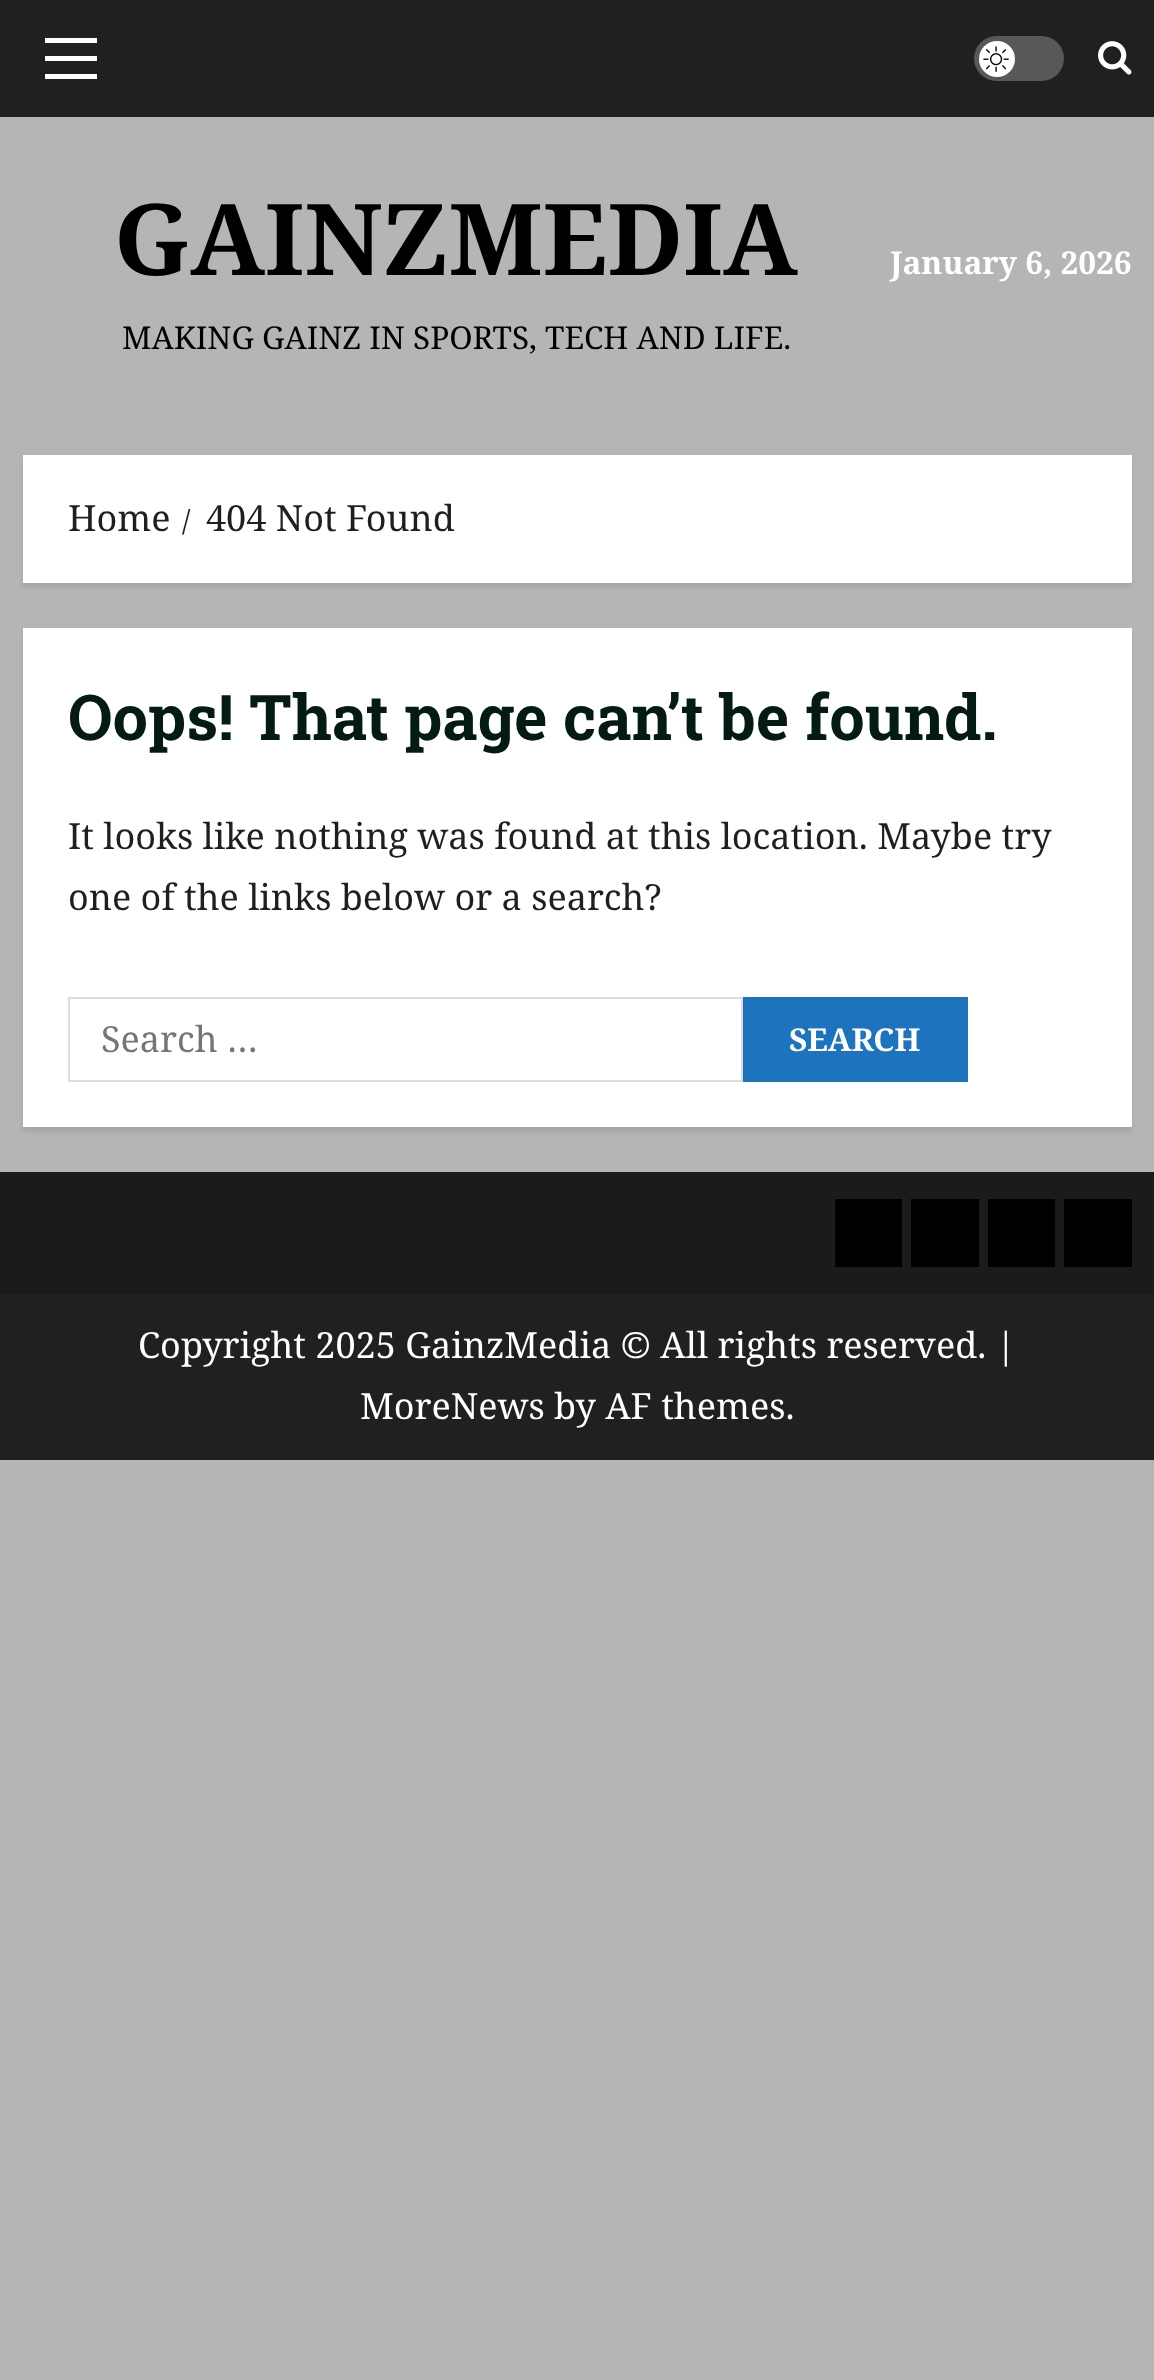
<!DOCTYPE html>
<meta charset="utf-8">
<style>body { margin: 0 } canvas { display: block }</style>
<canvas id="canvas" width="1154" height="2380"></canvas>
<script type="module">
  const canvas = document.getElementById("canvas");
  const ctx = canvas.getContext("2d");
  ctx.miterLimit = 4;
  ctx.fontKerning = "normal";
  async function loadImage(src) {
    const img = new Image();
    img.src = src;
    await img.decode();
    return img;
  }

  ctx.fillStyle = "#b5b5b5";
  ctx.fillRect(0, 0, 1154, 2380);
  ctx.fillStyle = "#202020";
  ctx.fillRect(0, 0, 1154, 117);
  ctx.fillStyle = "#ffffff";
  ctx.fillRect(45, 56, 52, 5);
  ctx.fillRect(45, 38, 52, 5);
  ctx.fillRect(45, 74, 52, 5);
  ctx.fillStyle = "#585858";
  ctx.beginPath();
  ctx.roundRect(974, 36, 90, 45, 22.5);
  ctx.fill();
  ctx.fillStyle = "#ffffff";
  ctx.beginPath();
  ctx.arc(997, 59, 18, 0, Math.PI * 2);
  ctx.fill();
  ctx.drawImage(await loadImage("img1.png"), 983, 46, 26, 26);
  ctx.drawImage(await loadImage("img2.png"), 1098, 41, 34, 34);
  ctx.font = "bold 99px Noto Serif";
  ctx.fillStyle = "#000000";
  ctx.fillText("GAINZMEDIA", 114, 275);
  ctx.font = "31.5px Noto Serif";
  ctx.fillText("MAKING GAINZ IN SPORTS, TECH AND LIFE.", 122, 349);
  ctx.font = "bold 31.5px Noto Serif";
  ctx.fillStyle = "#ffffff";
  ctx.fillText("January 6, 2026", 890, 274);
  ctx.fillStyle = "rgba(0, 0, 0, 0.08)";
  ctx.filter = "blur(2px)";
  ctx.beginPath();
  ctx.rect(23, 459, 1109, 128);
  ctx.fill();
  ctx.filter = "none";
  ctx.fillStyle = "#ffffff";
  ctx.fillRect(23, 455, 1109, 128);
  ctx.font = "36px Noto Serif";
  ctx.fillStyle = "#1f1f1f";
  ctx.fillText("Home", 68, 531);
  ctx.font = "29px Noto Serif";
  ctx.fillText("/", 182, 531);
  ctx.font = "36px Noto Serif";
  ctx.fillText("404 Not Found", 206, 531);
  ctx.fillStyle = "rgba(0, 0, 0, 0.08)";
  ctx.filter = "blur(2px)";
  ctx.beginPath();
  ctx.rect(23, 632, 1109, 500);
  ctx.fill();
  ctx.filter = "none";
  ctx.fillStyle = "#ffffff";
  ctx.fillRect(23, 628, 1109, 499);
  ctx.font = "bold 63px Roboto Slab";
  ctx.fillStyle = "#031b11";
  ctx.fillText("Oops! That page can’t be found.", 68, 740);
  ctx.font = "36px Noto Serif";
  ctx.fillStyle = "#1f1f1f";
  ctx.fillText("It looks like nothing was found at this location. Maybe try", 68, 849);
  ctx.fillText("one of the links below or a search?", 68, 910);
  ctx.strokeStyle = "#dcdcdc";
  ctx.lineWidth = 2;
  ctx.strokeRect(69, 998, 673, 83);
  ctx.fillStyle = "#757575";
  ctx.fillText("Search …", 101, 1052);
  ctx.fillStyle = "#1e73be";
  ctx.fillRect(743, 997, 225, 85);
  ctx.font = "bold 31.5px Noto Serif";
  ctx.fillStyle = "#ffffff";
  ctx.fillText("SEARCH", 789, 1051);
  ctx.fillStyle = "#202020";
  ctx.fillRect(0, 1294, 1154, 166);
  ctx.fillStyle = "#1b1b1b";
  ctx.fillRect(0, 1172, 1154, 122);
  ctx.fillStyle = "#000000";
  ctx.fillRect(835, 1199, 67, 68);
  ctx.fillRect(911, 1199, 68, 68);
  ctx.fillRect(988, 1199, 67, 68);
  ctx.fillRect(1064, 1199, 68, 68);
  ctx.font = "36px Noto Serif";
  ctx.fillStyle = "#ffffff";
  ctx.fillText("Copyright 2025 GainzMedia © All rights reserved. |", 138, 1358);
  ctx.fillText("MoreNews by AF themes.", 360, 1419);
</script>
